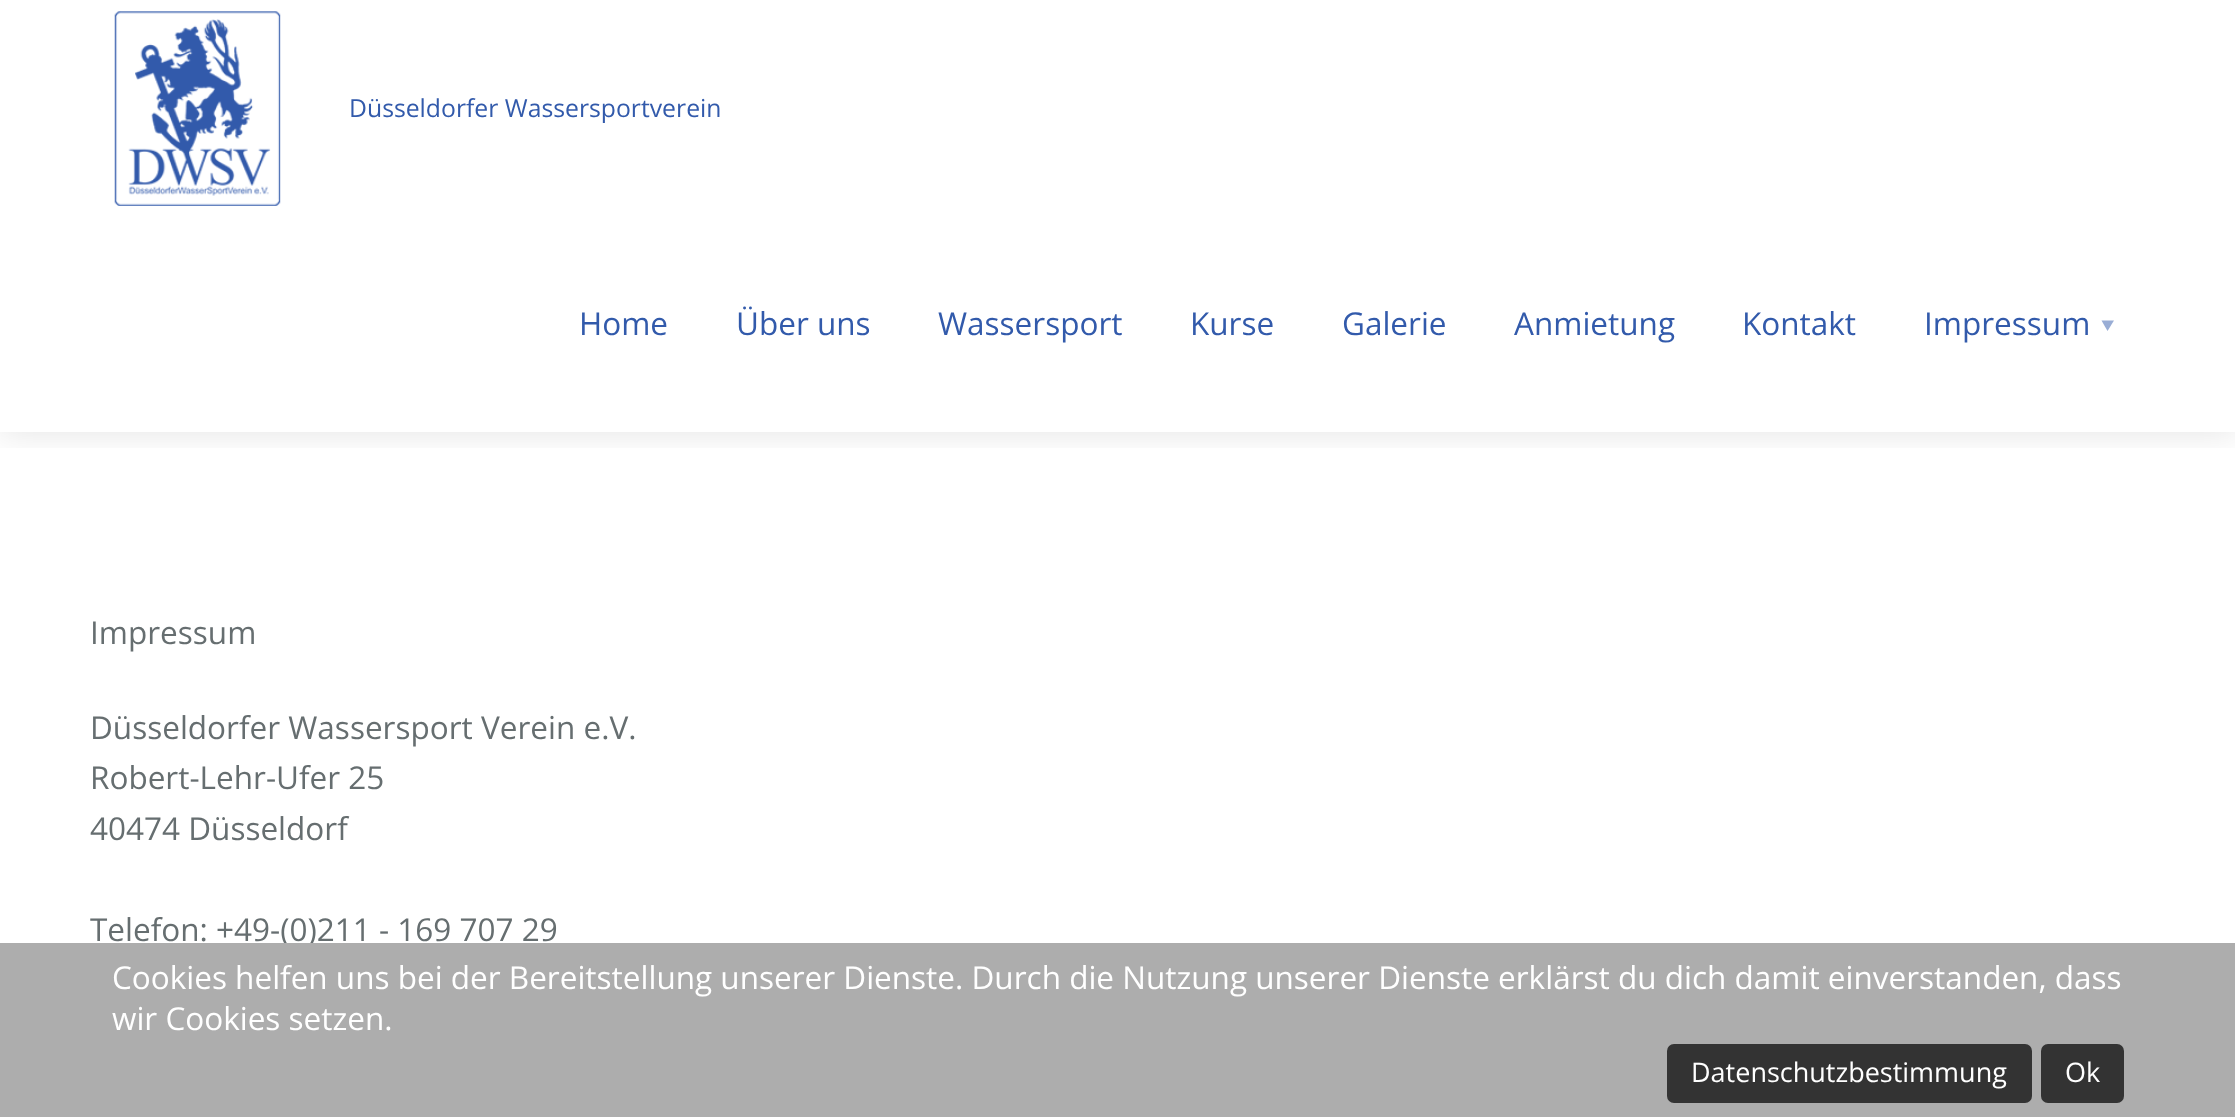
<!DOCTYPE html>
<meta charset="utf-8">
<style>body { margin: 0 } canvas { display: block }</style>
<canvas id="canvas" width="2235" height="1117"></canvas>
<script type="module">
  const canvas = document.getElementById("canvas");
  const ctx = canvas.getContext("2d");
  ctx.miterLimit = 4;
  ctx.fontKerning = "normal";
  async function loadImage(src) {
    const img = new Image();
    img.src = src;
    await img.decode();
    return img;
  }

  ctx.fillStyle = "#ffffff";
  ctx.fillRect(0, 0, 2235, 1117);
  ctx.save();
  ctx.beginPath();
  ctx.rect(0, 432, 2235, 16);
  ctx.clip();
  ctx.fillStyle = "rgba(0, 0, 0, 0.1)";
  ctx.filter = "blur(17px)";
  ctx.beginPath();
  ctx.rect(0, 2, 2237, 432);
  ctx.fill();
  ctx.filter = "none";
  ctx.restore();
  ctx.drawImage(await loadImage("img1.png"), 114, 11, 167, 195);
  ctx.font = "24.75px Open Sans";
  ctx.fillStyle = "#325aab";
  ctx.fillText("Düsseldorfer Wassersportverein", 349, 117);
  ctx.font = "31.5px Open Sans";
  ctx.fillText("Home", 579, 335);
  ctx.fillText("Über uns", 736, 335);
  ctx.fillText("Wassersport", 938, 335);
  ctx.fillText("Kurse", 1190, 335);
  ctx.fillText("Galerie", 1342, 335);
  ctx.fillText("Anmietung", 1514, 335);
  ctx.fillText("Kontakt", 1742, 335);
  ctx.fillText("Impressum", 1924, 335);
  ctx.fillStyle = "#99add5";
  ctx.beginPath();
  ctx.moveTo(2114, 320.5);
  ctx.lineTo(2107.5, 331);
  ctx.lineTo(2101.5, 320.5);
  ctx.closePath();
  ctx.fill();
  ctx.fillStyle = "#666e70";
  ctx.fillText("Impressum", 90, 644);
  ctx.fillText("Düsseldorfer Wassersport Verein e.V.", 90, 739);
  ctx.fillText("Robert-Lehr-Ufer 25", 90, 789);
  ctx.fillText("40474 Düsseldorf", 90, 840);
  ctx.fillText("Telefon: +49-(0)211 - 169 707 29", 90, 941);
  ctx.fillStyle = "#adadad";
  ctx.fillRect(0, 943, 2235, 174);
  ctx.fillStyle = "#ffffff";
  ctx.fillText("Cookies helfen uns bei der Bereitstellung unserer Dienste. Durch die Nutzung unserer Dienste erklärst du dich damit einverstanden, dass", 112, 989);
  ctx.fillText("wir Cookies setzen.", 112, 1030);
  ctx.fillStyle = "#333333";
  ctx.beginPath();
  ctx.roundRect(1667, 1044, 365, 59, 7);
  ctx.fill();
  ctx.font = "27px Open Sans";
  ctx.fillStyle = "#ffffff";
  ctx.fillText("Datenschutzbestimmung", 1691, 1082);
  ctx.fillStyle = "#333333";
  ctx.beginPath();
  ctx.roundRect(2041, 1044, 83, 59, 7);
  ctx.fill();
  ctx.fillStyle = "#ffffff";
  ctx.fillText("Ok", 2065, 1082);
</script>
